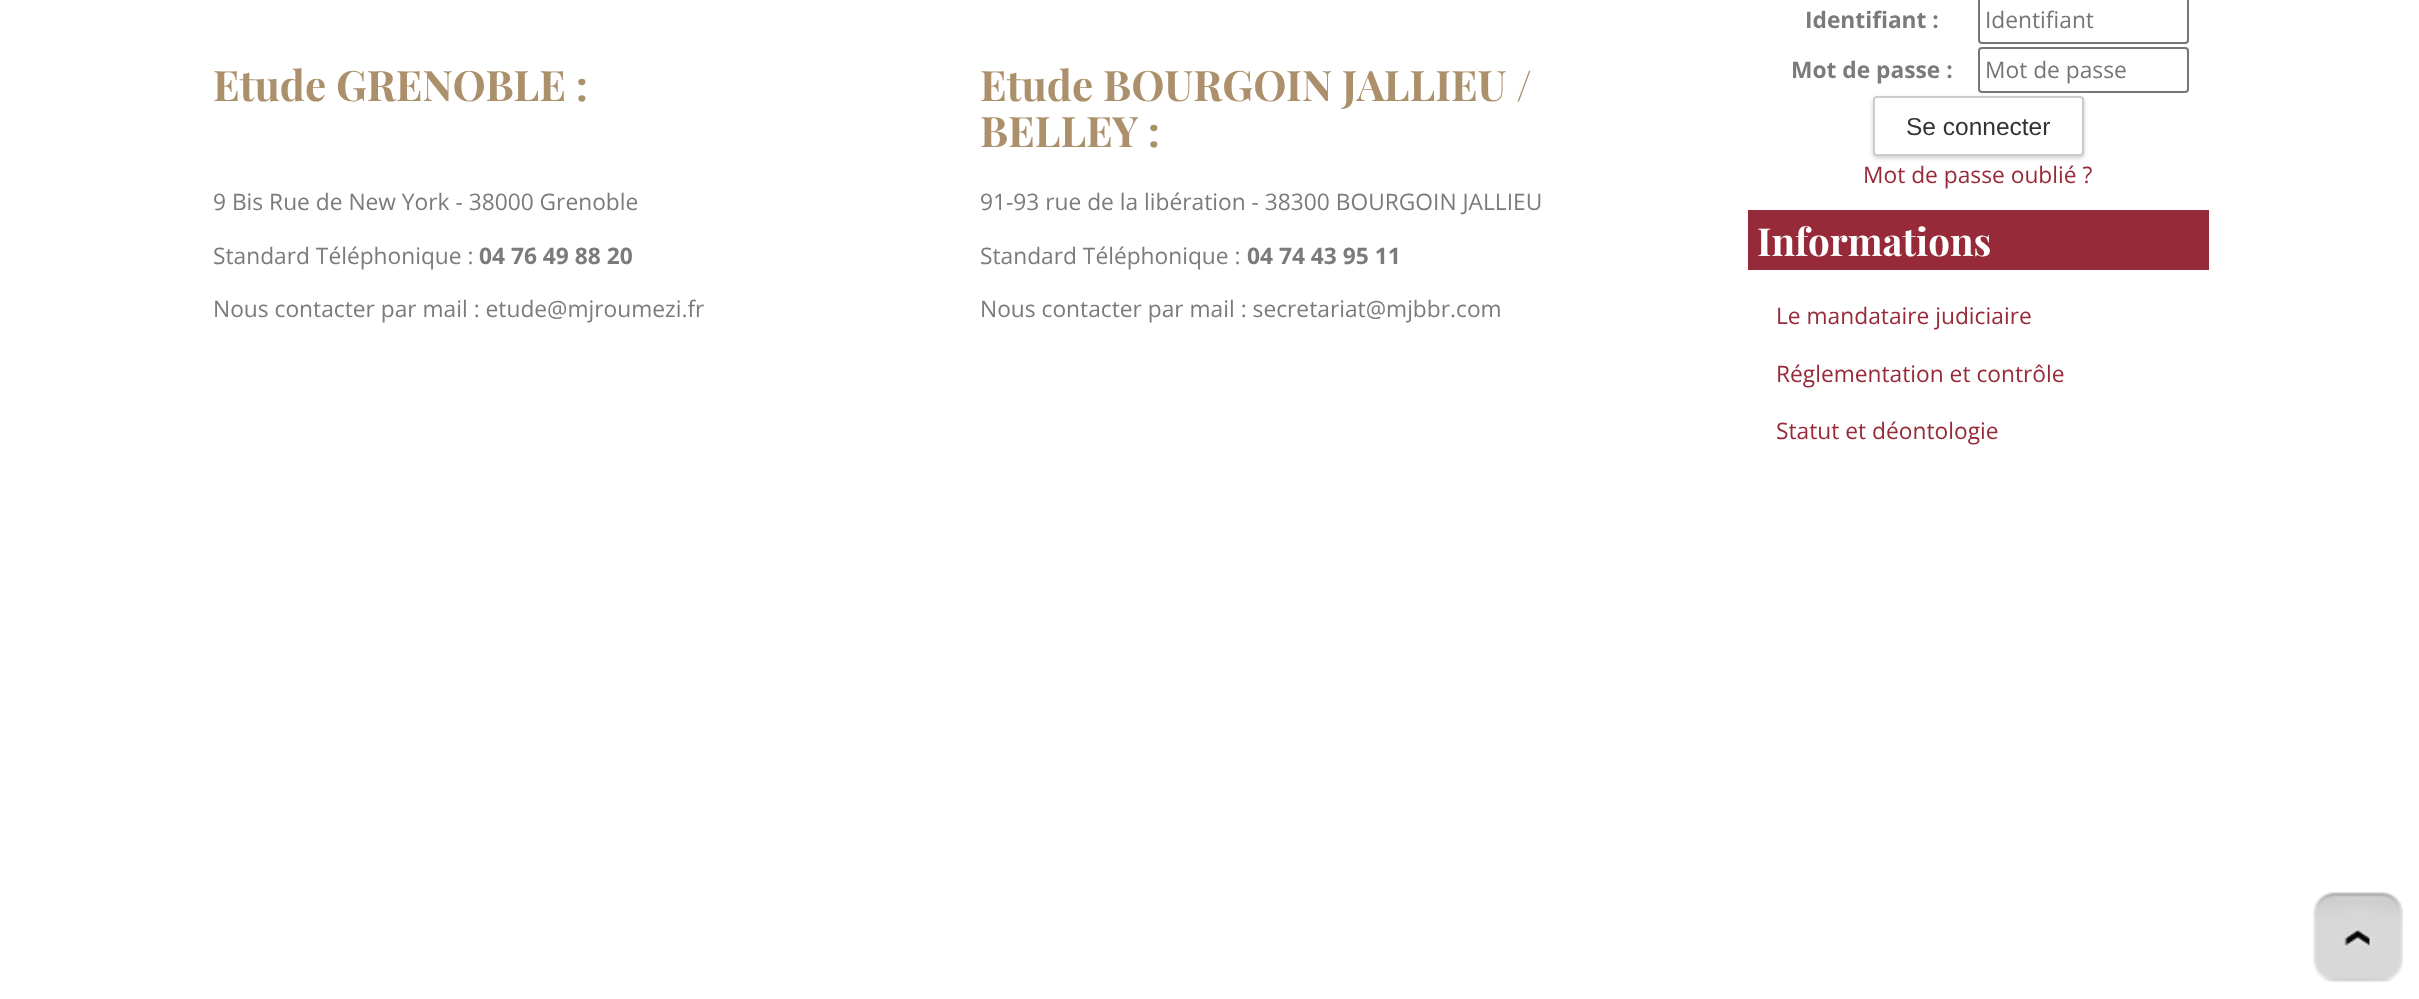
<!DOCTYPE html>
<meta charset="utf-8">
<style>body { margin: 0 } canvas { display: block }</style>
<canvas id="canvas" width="2419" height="999"></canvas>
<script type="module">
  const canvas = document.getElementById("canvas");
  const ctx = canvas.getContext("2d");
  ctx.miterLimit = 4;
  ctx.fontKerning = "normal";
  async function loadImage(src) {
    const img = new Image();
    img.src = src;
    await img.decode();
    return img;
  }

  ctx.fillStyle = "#ffffff";
  ctx.fillRect(0, 0, 2419, 999);
  ctx.font = "bold 42px Playfair Display";
  ctx.fillStyle = "#ab906b";
  ctx.fillText("Etude GRENOBLE :", 213, 101);
  ctx.font = "22.75px Open Sans";
  ctx.fillStyle = "#7b7b7b";
  ctx.fillText("9 Bis Rue de New York - 38000 Grenoble", 213, 210);
  ctx.fillText("Standard Téléphonique :", 213, 264);
  ctx.font = "bold 22.75px Open Sans";
  ctx.fillText("04 76 49 88 20", 479, 264);
  ctx.font = "22.75px Open Sans";
  ctx.fillText("Nous contacter par mail : etude@mjroumezi.fr", 213, 317);
  ctx.font = "bold 42px Playfair Display";
  ctx.fillStyle = "#ab906b";
  ctx.fillText("Etude BOURGOIN JALLIEU /", 980, 101);
  ctx.fillText("BELLEY :", 980, 147);
  ctx.font = "22.75px Open Sans";
  ctx.fillStyle = "#7b7b7b";
  ctx.fillText("91-93 rue de la libération - 38300 BOURGOIN JALLIEU", 980, 210);
  ctx.fillText("Standard Téléphonique :", 980, 264);
  ctx.font = "bold 22.75px Open Sans";
  ctx.fillText("04 74 43 95 11", 1247, 264);
  ctx.font = "22.75px Open Sans";
  ctx.fillText("Nous contacter par mail : secretariat@mjbbr.com", 980, 317);
  ctx.font = "bold 22.75px Open Sans";
  ctx.fillText("Identifiant :", 1805, 28);
  ctx.beginPath();
  ctx.roundRect(1979, -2, 209, 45, 3);
  ctx.strokeStyle = "#767676";
  ctx.lineWidth = 2;
  ctx.stroke();
  ctx.font = "22.75px Open Sans";
  ctx.fillStyle = "#757575";
  ctx.fillText("Identifiant", 1985, 28);
  ctx.font = "bold 22.75px Open Sans";
  ctx.fillStyle = "#7b7b7b";
  ctx.fillText("Mot de passe :", 1791, 78);
  ctx.beginPath();
  ctx.roundRect(1979, 48, 209, 44, 3);
  ctx.stroke();
  ctx.font = "22.75px Open Sans";
  ctx.fillStyle = "#757575";
  ctx.fillText("Mot de passe", 1985, 78);
  ctx.fillStyle = "rgba(0, 0, 0, 0.2)";
  ctx.filter = "blur(2px)";
  ctx.beginPath();
  ctx.roundRect(1873, 98, 211, 60, 4);
  ctx.fill();
  ctx.filter = "none";
  ctx.fillStyle = "#ffffff";
  ctx.beginPath();
  ctx.roundRect(1874, 97, 209, 58, 3);
  ctx.fill();
  ctx.strokeStyle = "#cccccc";
  ctx.stroke();
  ctx.font = "24.5px Liberation Sans";
  ctx.fillStyle = "#333333";
  ctx.fillText("Se connecter", 1906, 135);
  ctx.font = "22.75px Open Sans";
  ctx.fillStyle = "#972a38";
  ctx.fillText("Mot de passe oublié ?", 1863, 183);
  ctx.fillRect(1748, 210, 461, 60);
  ctx.font = "bold 38.5px Playfair Display";
  ctx.fillStyle = "#ffffff";
  ctx.fillText("Informations", 1757, 256);
  ctx.font = "22.75px Open Sans";
  ctx.fillStyle = "#972a38";
  ctx.fillText("Le mandataire judiciaire", 1776, 324);
  ctx.fillText("Réglementation et contrôle", 1776, 382);
  ctx.fillText("Statut et déontologie", 1776, 439);
  ctx.drawImage(await loadImage("img1.png"), 2313, 892, 90, 90);
</script>
